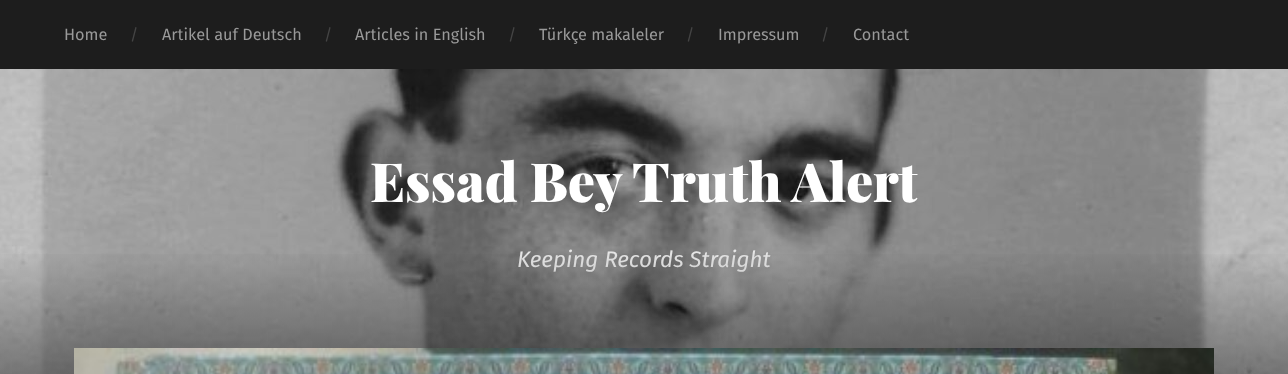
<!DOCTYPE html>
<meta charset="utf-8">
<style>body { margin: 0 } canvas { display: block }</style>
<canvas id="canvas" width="1288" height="374"></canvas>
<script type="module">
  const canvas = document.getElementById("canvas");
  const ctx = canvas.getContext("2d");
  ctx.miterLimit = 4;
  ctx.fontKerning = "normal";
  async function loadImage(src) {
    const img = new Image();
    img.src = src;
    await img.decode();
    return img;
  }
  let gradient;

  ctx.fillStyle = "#ffffff";
  ctx.fillRect(0, 0, 1288, 374);
  ctx.fillStyle = "#1d1d1d";
  ctx.fillRect(0, 0, 1288, 69);
  ctx.font = "16.25px Fira Sans";
  ctx.fillStyle = "#999999";
  ctx.fillText("Home", 64, 40);
  ctx.font = "16px Fira Sans";
  ctx.fillStyle = "#444444";
  ctx.fillText("/", 130, 40);
  ctx.font = "16.25px Fira Sans";
  ctx.fillStyle = "#999999";
  ctx.fillText("Artikel auf Deutsch", 162, 40);
  ctx.font = "16px Fira Sans";
  ctx.fillStyle = "#444444";
  ctx.fillText("/", 324, 40);
  ctx.font = "16.25px Fira Sans";
  ctx.fillStyle = "#999999";
  ctx.fillText("Articles in English", 355, 40);
  ctx.font = "16px Fira Sans";
  ctx.fillStyle = "#444444";
  ctx.fillText("/", 508, 40);
  ctx.font = "16.25px Fira Sans";
  ctx.fillStyle = "#999999";
  ctx.fillText("Türkçe makaleler", 539, 40);
  ctx.font = "16px Fira Sans";
  ctx.fillStyle = "#444444";
  ctx.fillText("/", 686, 40);
  ctx.font = "16.25px Fira Sans";
  ctx.fillStyle = "#999999";
  ctx.fillText("Impressum", 718, 40);
  ctx.font = "16px Fira Sans";
  ctx.fillStyle = "#444444";
  ctx.fillText("/", 821, 40);
  ctx.font = "16.25px Fira Sans";
  ctx.fillStyle = "#999999";
  ctx.fillText("Contact", 853, 40);
  ctx.drawImage(await loadImage("img1.png"), 0, 69, 1288, 305);
  ctx.font = "900 54px Playfair Display";
  ctx.fillStyle = "#ffffff";
  ctx.fillText("Essad Bey Truth Alert", 370, 202);
  ctx.font = "italic 22.5px Fira Sans";
  ctx.fillStyle = "#e6e6e6";
  ctx.fillText("Keeping Records Straight", 517, 267);
  gradient = ctx.createLinearGradient(644, 248, 644, 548);
  gradient.addColorStop(0, "rgba(17, 17, 17, 0)");
  gradient.addColorStop(1, "#111111");
  ctx.fillStyle = gradient;
  ctx.fillRect(0, 254, 1288, 120);
  ctx.drawImage(await loadImage("img2.png"), 74, 348, 1140, 26);
</script>
